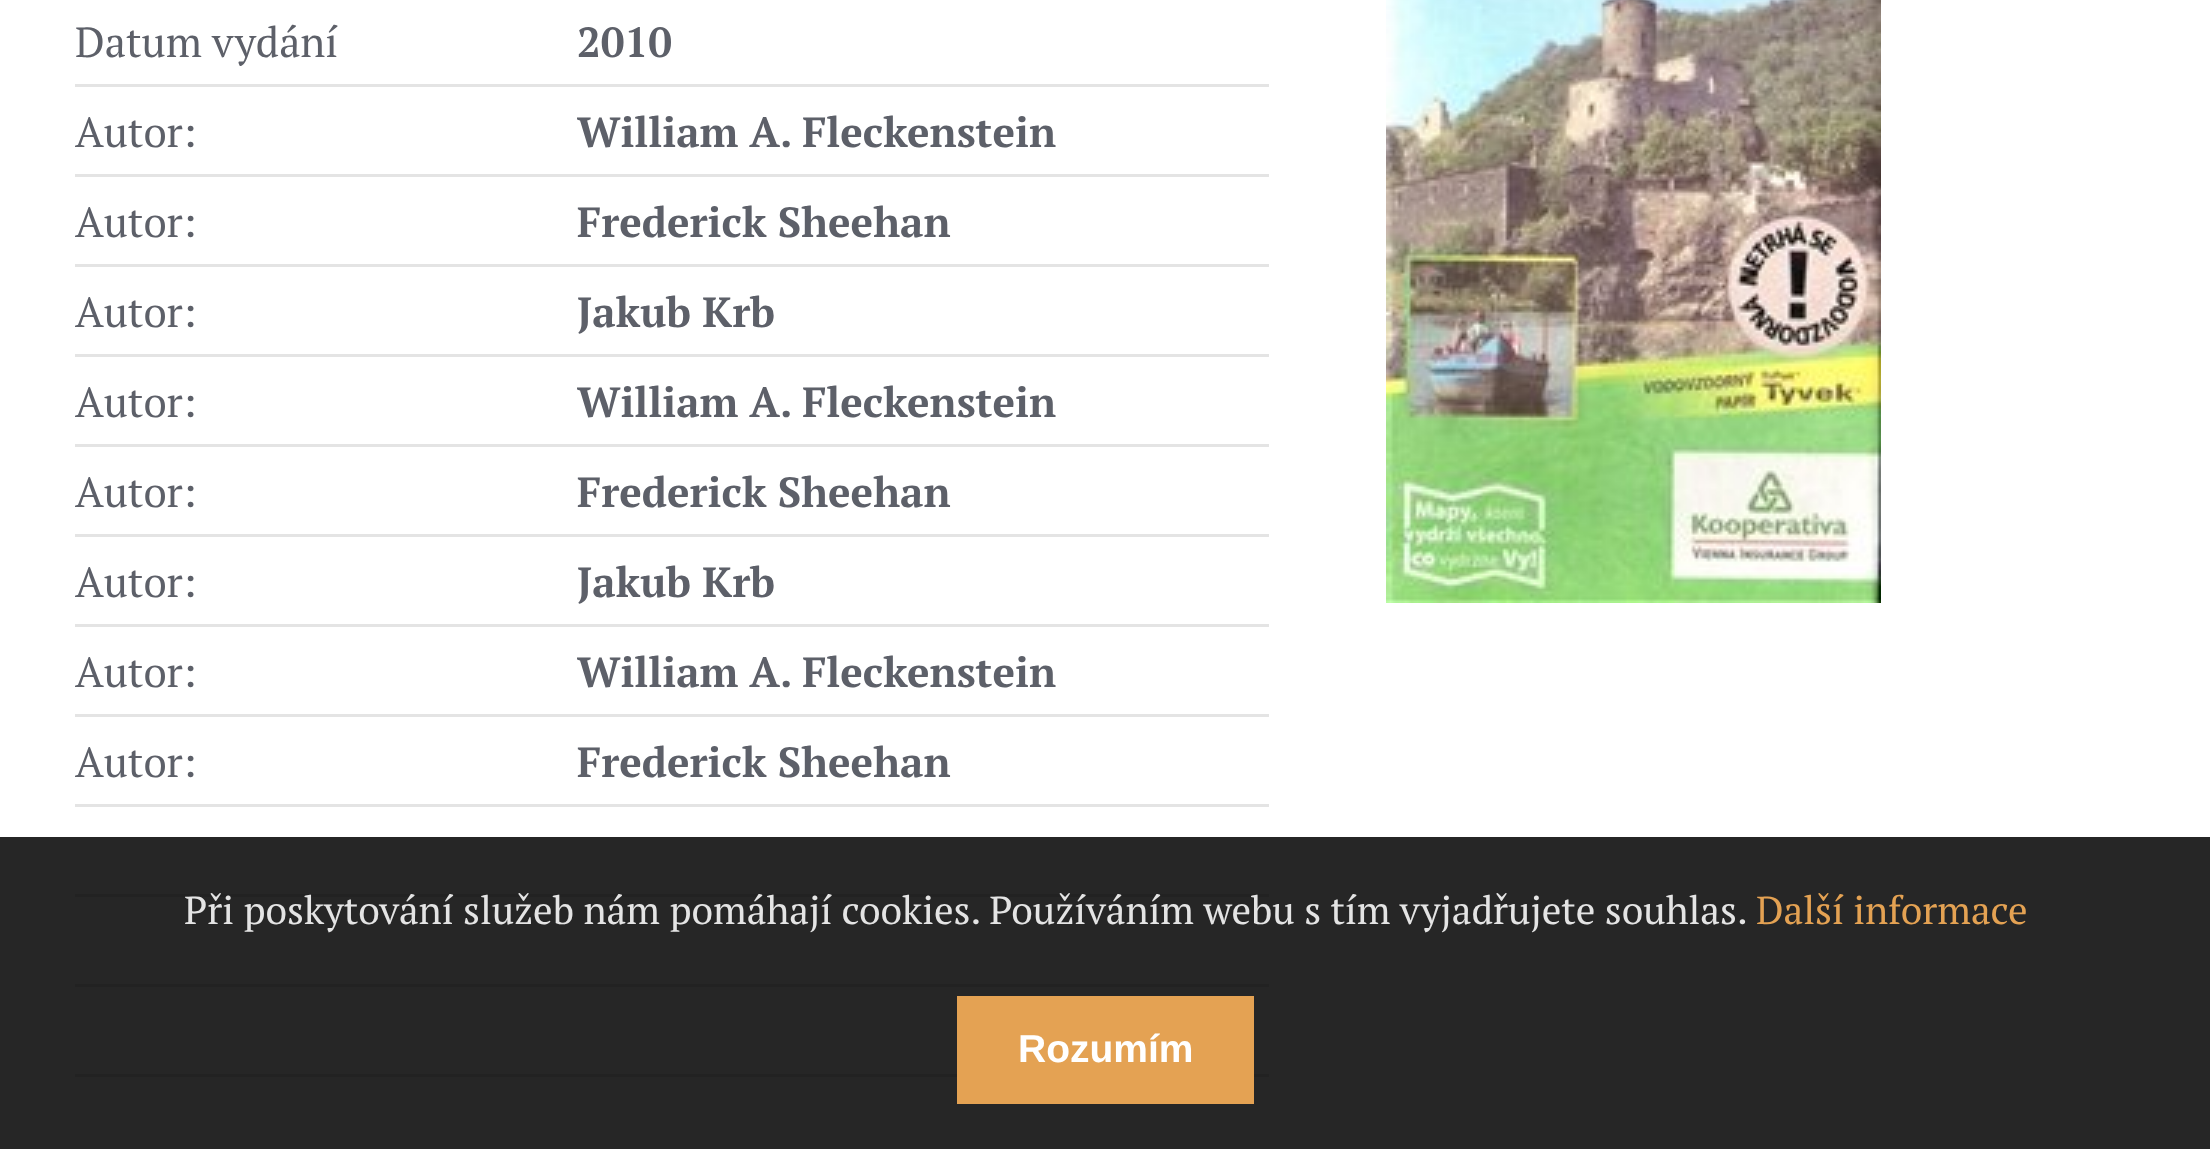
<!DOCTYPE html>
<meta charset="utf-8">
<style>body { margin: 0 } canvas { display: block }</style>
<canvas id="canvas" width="2210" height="1149"></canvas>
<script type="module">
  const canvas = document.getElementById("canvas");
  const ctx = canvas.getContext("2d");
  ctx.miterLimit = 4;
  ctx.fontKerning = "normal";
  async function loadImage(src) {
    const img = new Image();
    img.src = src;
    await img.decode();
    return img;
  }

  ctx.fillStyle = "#ffffff";
  ctx.fillRect(0, 0, 2210, 1149);
  ctx.font = "42px PT Serif";
  ctx.fillStyle = "#5d6069";
  ctx.fillText("Datum vydání", 75, 57);
  ctx.fillStyle = "#e4e4e4";
  ctx.fillRect(75, 84, 1194, 3);
  ctx.font = "bold 42px PT Serif";
  ctx.fillStyle = "#5d6069";
  ctx.fillText("2010", 577, 57);
  ctx.font = "42px PT Serif";
  ctx.fillText("Autor:", 75, 147);
  ctx.fillStyle = "#e4e4e4";
  ctx.fillRect(75, 174, 1194, 3);
  ctx.font = "bold 42px PT Serif";
  ctx.fillStyle = "#5d6069";
  ctx.fillText("William A. Fleckenstein", 577, 147);
  ctx.font = "42px PT Serif";
  ctx.fillText("Autor:", 75, 237);
  ctx.fillStyle = "#e4e4e4";
  ctx.fillRect(75, 264, 1194, 3);
  ctx.font = "bold 42px PT Serif";
  ctx.fillStyle = "#5d6069";
  ctx.fillText("Frederick Sheehan", 577, 237);
  ctx.font = "42px PT Serif";
  ctx.fillText("Autor:", 75, 327);
  ctx.fillStyle = "#e4e4e4";
  ctx.fillRect(75, 354, 1194, 3);
  ctx.font = "bold 42px PT Serif";
  ctx.fillStyle = "#5d6069";
  ctx.fillText("Jakub Krb", 577, 327);
  ctx.font = "42px PT Serif";
  ctx.fillText("Autor:", 75, 417);
  ctx.fillStyle = "#e4e4e4";
  ctx.fillRect(75, 444, 1194, 3);
  ctx.font = "bold 42px PT Serif";
  ctx.fillStyle = "#5d6069";
  ctx.fillText("William A. Fleckenstein", 577, 417);
  ctx.font = "42px PT Serif";
  ctx.fillText("Autor:", 75, 507);
  ctx.fillStyle = "#e4e4e4";
  ctx.fillRect(75, 534, 1194, 3);
  ctx.font = "bold 42px PT Serif";
  ctx.fillStyle = "#5d6069";
  ctx.fillText("Frederick Sheehan", 577, 507);
  ctx.font = "42px PT Serif";
  ctx.fillText("Autor:", 75, 597);
  ctx.fillStyle = "#e4e4e4";
  ctx.fillRect(75, 624, 1194, 3);
  ctx.font = "bold 42px PT Serif";
  ctx.fillStyle = "#5d6069";
  ctx.fillText("Jakub Krb", 577, 597);
  ctx.font = "42px PT Serif";
  ctx.fillText("Autor:", 75, 687);
  ctx.fillStyle = "#e4e4e4";
  ctx.fillRect(75, 714, 1194, 3);
  ctx.font = "bold 42px PT Serif";
  ctx.fillStyle = "#5d6069";
  ctx.fillText("William A. Fleckenstein", 577, 687);
  ctx.font = "42px PT Serif";
  ctx.fillText("Autor:", 75, 777);
  ctx.fillStyle = "#e4e4e4";
  ctx.fillRect(75, 804, 1194, 3);
  ctx.font = "bold 42px PT Serif";
  ctx.fillStyle = "#5d6069";
  ctx.fillText("Frederick Sheehan", 577, 777);
  ctx.fillStyle = "#e4e4e4";
  ctx.fillRect(75, 894, 1194, 3);
  ctx.fillRect(75, 984, 1194, 3);
  ctx.fillRect(75, 1074, 1194, 3);
  ctx.drawImage(await loadImage("img1.png"), 1386, 0, 495, 603);
  ctx.fillStyle = "rgba(0, 0, 0, 0.85)";
  ctx.fillRect(0, 837, 2210, 312);
  ctx.font = "39px PT Serif";
  ctx.fillStyle = "#e4e4e4";
  ctx.fillText("Při poskytování služeb nám pomáhají cookies. Používáním webu s tím vyjadřujete souhlas.", 184, 924);
  ctx.fillStyle = "#e4a253";
  ctx.fillText("Další informace", 1756, 924);
  ctx.fillRect(957, 996, 297, 108);
  ctx.font = "bold 39px Liberation Sans";
  ctx.fillStyle = "#ffffff";
  ctx.fillText("Rozumím", 1018, 1062);
</script>
